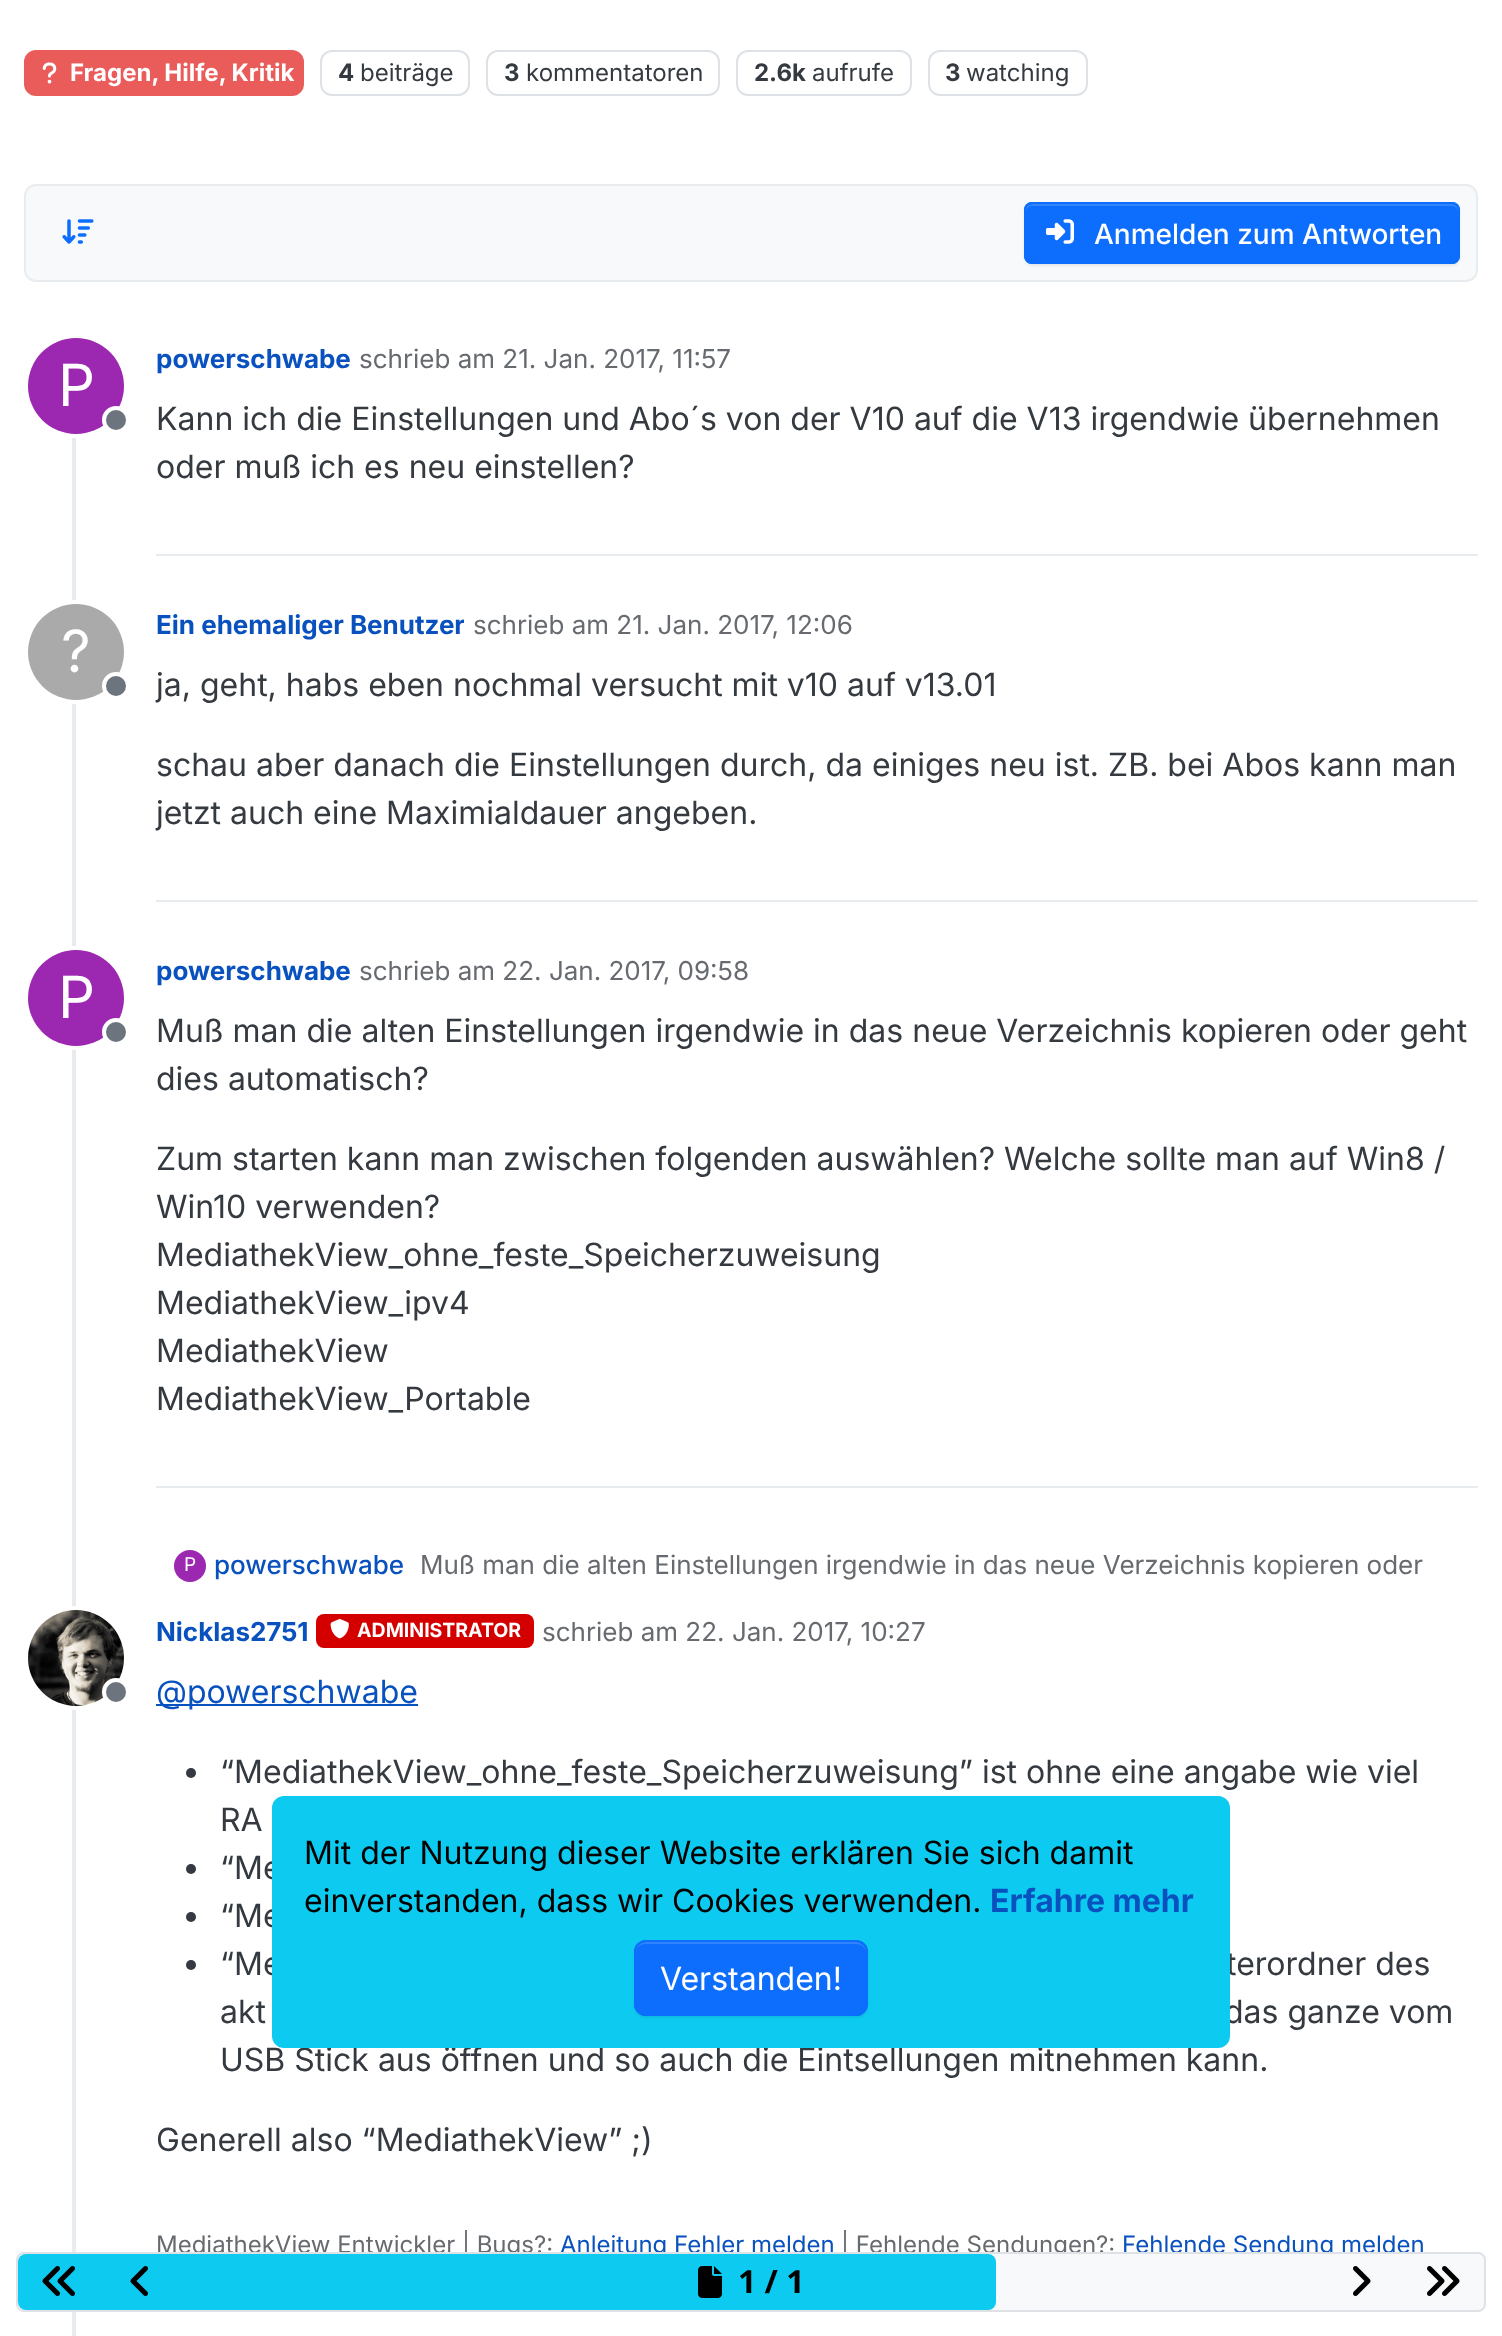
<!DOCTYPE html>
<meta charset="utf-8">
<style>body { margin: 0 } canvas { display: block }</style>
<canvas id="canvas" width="1502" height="2336"></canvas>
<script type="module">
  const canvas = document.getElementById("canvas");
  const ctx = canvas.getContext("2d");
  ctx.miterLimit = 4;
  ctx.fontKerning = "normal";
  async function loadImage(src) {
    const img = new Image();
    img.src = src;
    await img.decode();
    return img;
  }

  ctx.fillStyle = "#ffffff";
  ctx.fillRect(0, 0, 1502, 2336);
  ctx.fillStyle = "#e95c5a";
  ctx.beginPath();
  ctx.roundRect(25, 51, 278, 44, 11);
  ctx.fill();
  ctx.strokeStyle = "#e95c5a";
  ctx.lineWidth = 2;
  ctx.stroke();
  ctx.drawImage(await loadImage("img1.png"), 42, 62, 15, 22);
  ctx.font = "bold 24px Inter";
  ctx.fillStyle = "#ffffff";
  ctx.fillText("Fragen, Hilfe, Kritik", 70, 81);
  ctx.beginPath();
  ctx.roundRect(321, 51, 148, 44, 11);
  ctx.strokeStyle = "#dee2e6";
  ctx.stroke();
  ctx.fillStyle = "#343a40";
  ctx.fillText("4", 338, 81);
  ctx.font = "24px Inter";
  ctx.fillText("beiträge", 360, 81);
  ctx.beginPath();
  ctx.roundRect(487, 51, 232, 44, 11);
  ctx.stroke();
  ctx.font = "bold 24px Inter";
  ctx.fillText("3", 504, 81);
  ctx.font = "24px Inter";
  ctx.fillText("kommentatoren", 526, 81);
  ctx.beginPath();
  ctx.roundRect(737, 51, 174, 44, 11);
  ctx.stroke();
  ctx.font = "bold 24px Inter";
  ctx.fillText("2.6k", 754, 81);
  ctx.font = "24px Inter";
  ctx.fillText("aufrufe", 812, 81);
  ctx.beginPath();
  ctx.roundRect(929, 51, 158, 44, 11);
  ctx.stroke();
  ctx.font = "bold 24px Inter";
  ctx.fillText("3", 945, 81);
  ctx.font = "24px Inter";
  ctx.fillText("watching", 966, 81);
  ctx.fillStyle = "#f8f9fa";
  ctx.beginPath();
  ctx.roundRect(25, 185, 1452, 96, 11);
  ctx.fill();
  ctx.strokeStyle = "#e9ecef";
  ctx.stroke();
  ctx.drawImage(await loadImage("img2.png"), 62, 219, 32, 25);
  ctx.fillStyle = "rgba(0, 0, 0, 0.07)";
  ctx.filter = "blur(1px)";
  ctx.beginPath();
  ctx.roundRect(1024, 204, 436, 62, 8);
  ctx.fill();
  ctx.filter = "none";
  ctx.fillStyle = "#0d6efd";
  ctx.beginPath();
  ctx.roundRect(1024, 202, 436, 62, 8);
  ctx.fill();
  ctx.fillStyle = "#3184fd";
  ctx.beginPath();
  ctx.moveTo(1032, 206);
  ctx.lineTo(1452, 206);
  ctx.bezierCurveTo(1455, 206, 1458, 209, 1458, 212);
  ctx.lineTo(1458, 210);
  ctx.bezierCurveTo(1458, 207, 1455, 204, 1452, 204);
  ctx.lineTo(1032, 204);
  ctx.bezierCurveTo(1029, 204, 1026, 207, 1026, 210);
  ctx.lineTo(1026, 212);
  ctx.bezierCurveTo(1026, 209, 1029, 206, 1032, 206);
  ctx.closePath();
  ctx.fill();
  ctx.beginPath();
  ctx.roundRect(1025, 203, 434, 60, 7);
  ctx.strokeStyle = "#0d6efd";
  ctx.stroke();
  ctx.drawImage(await loadImage("img3.png"), 1046, 219, 28, 25);
  ctx.font = "500 28px Inter";
  ctx.fillStyle = "#ffffff";
  ctx.fillText("Anmelden zum Antworten", 1094, 244);
  ctx.fillStyle = "#e9ecef";
  ctx.fillRect(72, 338, 4, 1998);
  ctx.beginPath();
  ctx.arc(76, 386, 50, 0, Math.PI * 2);
  ctx.strokeStyle = "#ffffff";
  ctx.lineWidth = 4;
  ctx.stroke();
  ctx.fillStyle = "#9c27b0";
  ctx.beginPath();
  ctx.arc(76, 386, 48, 0, Math.PI * 2);
  ctx.fill();
  ctx.font = "58px Inter";
  ctx.fillStyle = "#ffffff";
  ctx.fillText("P", 58, 406);
  ctx.fillStyle = "#6c757d";
  ctx.beginPath();
  ctx.arc(116, 420, 12, 0, Math.PI * 2);
  ctx.fill();
  ctx.stroke();
  ctx.font = "bold 26px Inter";
  ctx.fillStyle = "#0951be";
  ctx.fillText("powerschwabe", 156, 368);
  ctx.font = "26px Inter";
  ctx.fillStyle = "#676b70";
  ctx.fillText("schrieb am 21. Jan. 2017, 11:57", 359, 368);
  ctx.font = "32px Inter";
  ctx.fillStyle = "#343a40";
  ctx.fillText("Kann ich die Einstellungen und Abo´s von der V10 auf die V13 irgendwie übernehmen", 156, 430);
  ctx.fillText("oder muß ich es neu einstellen?", 156, 478);
  ctx.fillStyle = "#e9ecef";
  ctx.fillRect(156, 554, 1322, 2);
  ctx.beginPath();
  ctx.arc(76, 652, 50, 0, Math.PI * 2);
  ctx.stroke();
  ctx.fillStyle = "#aaaaaa";
  ctx.beginPath();
  ctx.arc(76, 652, 48, 0, Math.PI * 2);
  ctx.fill();
  ctx.font = "58px Inter";
  ctx.fillStyle = "#ffffff";
  ctx.fillText("?", 61, 672);
  ctx.fillStyle = "#6c757d";
  ctx.beginPath();
  ctx.arc(116, 686, 12, 0, Math.PI * 2);
  ctx.fill();
  ctx.stroke();
  ctx.save();
  ctx.beginPath();
  ctx.rect(156, 604, 308, 40);
  ctx.clip();
  ctx.font = "bold 26px Inter";
  ctx.fillStyle = "#0951be";
  ctx.fillText("Ein ehemaliger Benutzer", 156, 634);
  ctx.restore();
  ctx.font = "26px Inter";
  ctx.fillStyle = "#676b70";
  ctx.fillText("schrieb am 21. Jan. 2017, 12:06", 473, 634);
  ctx.font = "32px Inter";
  ctx.fillStyle = "#343a40";
  ctx.fillText("ja, geht, habs eben nochmal versucht mit v10 auf v13.01", 156, 696);
  ctx.fillText("schau aber danach die Einstellungen durch, da einiges neu ist. ZB. bei Abos kann man", 156, 776);
  ctx.fillText("jetzt auch eine Maximialdauer angeben.", 156, 824);
  ctx.fillStyle = "#e9ecef";
  ctx.fillRect(156, 900, 1322, 2);
  ctx.beginPath();
  ctx.arc(76, 998, 50, 0, Math.PI * 2);
  ctx.stroke();
  ctx.fillStyle = "#9c27b0";
  ctx.beginPath();
  ctx.arc(76, 998, 48, 0, Math.PI * 2);
  ctx.fill();
  ctx.font = "58px Inter";
  ctx.fillStyle = "#ffffff";
  ctx.fillText("P", 58, 1018);
  ctx.fillStyle = "#6c757d";
  ctx.beginPath();
  ctx.arc(116, 1032, 12, 0, Math.PI * 2);
  ctx.fill();
  ctx.stroke();
  ctx.font = "bold 26px Inter";
  ctx.fillStyle = "#0951be";
  ctx.fillText("powerschwabe", 156, 980);
  ctx.font = "26px Inter";
  ctx.fillStyle = "#676b70";
  ctx.fillText("schrieb am 22. Jan. 2017, 09:58", 359, 980);
  ctx.font = "32px Inter";
  ctx.fillStyle = "#343a40";
  ctx.fillText("Muß man die alten Einstellungen irgendwie in das neue Verzeichnis kopieren oder geht", 156, 1042);
  ctx.fillText("dies automatisch?", 156, 1090);
  ctx.fillText("Zum starten kann man zwischen folgenden auswählen? Welche sollte man auf Win8 /", 156, 1170);
  ctx.fillText("Win10 verwenden?", 156, 1218);
  ctx.fillText("MediathekView_ohne_feste_Speicherzuweisung", 156, 1266);
  ctx.fillText("MediathekView_ipv4", 156, 1314);
  ctx.fillText("MediathekView", 156, 1362);
  ctx.fillText("MediathekView_Portable", 156, 1410);
  ctx.fillStyle = "#e9ecef";
  ctx.fillRect(156, 1486, 1322, 2);
  ctx.fillStyle = "#9c27b0";
  ctx.beginPath();
  ctx.arc(190, 1566, 16, 0, Math.PI * 2);
  ctx.fill();
  ctx.font = "19px Inter";
  ctx.fillStyle = "#ffffff";
  ctx.fillText("P", 184, 1571);
  ctx.font = "500 26px Inter";
  ctx.fillStyle = "#0951be";
  ctx.fillText("powerschwabe", 214, 1574);
  ctx.font = "26px Inter";
  ctx.fillStyle = "#676b70";
  ctx.fillText("Muß man die alten Einstellungen irgendwie in das neue Verzeichnis kopieren oder", 420, 1574);
  ctx.beginPath();
  ctx.arc(76, 1658, 50, 0, Math.PI * 2);
  ctx.stroke();
  ctx.drawImage(await loadImage("img4.png"), 28, 1610, 96, 96);
  ctx.fillStyle = "#6c757d";
  ctx.beginPath();
  ctx.arc(116, 1692, 12, 0, Math.PI * 2);
  ctx.fill();
  ctx.stroke();
  ctx.font = "bold 26px Inter";
  ctx.fillStyle = "#0951be";
  ctx.fillText("Nicklas2751", 156, 1641);
  ctx.fillStyle = "#d40000";
  ctx.beginPath();
  ctx.roundRect(316, 1614, 218, 34, 8);
  ctx.fill();
  ctx.drawImage(await loadImage("img5.png"), 330, 1619, 19, 20);
  ctx.font = "bold 19.5px Inter";
  ctx.fillStyle = "#ffffff";
  ctx.fillText("ADMINISTRATOR", 357, 1637);
  ctx.font = "26px Inter";
  ctx.fillStyle = "#676b70";
  ctx.fillText("schrieb am 22. Jan. 2017, 10:27", 542, 1641);
  ctx.fillStyle = "#0951be";
  ctx.fillRect(156, 1704, 262, 2);
  ctx.font = "32px Inter";
  ctx.fillText("@powerschwabe", 156, 1703);
  ctx.fillStyle = "#343a40";
  ctx.beginPath();
  ctx.arc(191, 1773, 5, 0, Math.PI * 2);
  ctx.fill();
  ctx.fillText("“MediathekView_ohne_feste_Speicherzuweisung” ist ohne eine angabe wie viel", 220, 1783);
  ctx.fillText("RA", 220, 1831);
  ctx.beginPath();
  ctx.arc(191, 1869, 5, 0, Math.PI * 2);
  ctx.fill();
  ctx.fillText("“Me", 220, 1879);
  ctx.beginPath();
  ctx.arc(191, 1917, 5, 0, Math.PI * 2);
  ctx.fill();
  ctx.fillText("“Me", 220, 1927);
  ctx.beginPath();
  ctx.arc(191, 1965, 5, 0, Math.PI * 2);
  ctx.fill();
  ctx.fillText("“Me", 220, 1975);
  ctx.fillText("terordner des", 1226, 1975);
  ctx.fillText("akt", 220, 2023);
  ctx.fillText("das ganze vom", 1224, 2023);
  ctx.fillText("USB Stick aus öffnen und so auch die Eintsellungen mitnehmen kann.", 220, 2071);
  ctx.fillText("Generell also “MediathekView” ;)", 156, 2151);
  ctx.font = "24px Inter";
  ctx.fillStyle = "#676b70";
  ctx.fillText("MediathekView Entwickler | Bugs?:", 156, 2253);
  ctx.fillStyle = "#0951be";
  ctx.fillText("Anleitung Fehler melden", 560, 2253);
  ctx.fillStyle = "#676b70";
  ctx.fillText("| Fehlende Sendungen?:", 841, 2253);
  ctx.fillStyle = "#0951be";
  ctx.fillText("Fehlende Sendung melden", 1122, 2253);
  ctx.fillStyle = "#0dcaf0";
  ctx.beginPath();
  ctx.roundRect(272, 1796, 958, 252, 12);
  ctx.fill();
  ctx.font = "32px Inter";
  ctx.fillStyle = "#000000";
  ctx.fillText("Mit der Nutzung dieser Website erklären Sie sich damit", 304, 1864);
  ctx.fillText("einverstanden, dass wir Cookies verwenden.", 304, 1912);
  ctx.font = "bold 32px Inter";
  ctx.fillStyle = "#0951be";
  ctx.fillText("Erfahre mehr", 990, 1912);
  ctx.fillStyle = "rgba(0, 0, 0, 0.07)";
  ctx.filter = "blur(1px)";
  ctx.beginPath();
  ctx.roundRect(634, 1942, 234, 76, 12);
  ctx.fill();
  ctx.filter = "none";
  ctx.fillStyle = "#0d6efd";
  ctx.beginPath();
  ctx.roundRect(634, 1940, 234, 76, 12);
  ctx.fill();
  ctx.fillStyle = "#3184fd";
  ctx.beginPath();
  ctx.moveTo(646, 1944);
  ctx.lineTo(856, 1944);
  ctx.bezierCurveTo(862, 1944, 866, 1948, 866, 1954);
  ctx.lineTo(866, 1952);
  ctx.bezierCurveTo(866, 1946, 862, 1942, 856, 1942);
  ctx.lineTo(646, 1942);
  ctx.bezierCurveTo(640, 1942, 636, 1946, 636, 1952);
  ctx.lineTo(636, 1954);
  ctx.bezierCurveTo(636, 1948, 640, 1944, 646, 1944);
  ctx.closePath();
  ctx.fill();
  ctx.beginPath();
  ctx.roundRect(635, 1941, 232, 74, 11);
  ctx.strokeStyle = "#0d6efd";
  ctx.lineWidth = 2;
  ctx.stroke();
  ctx.font = "32px Inter";
  ctx.fillStyle = "#ffffff";
  ctx.fillText("Verstanden!", 660, 1990);
  ctx.fillStyle = "#f8f9fa";
  ctx.beginPath();
  ctx.roundRect(17, 2253, 1468, 58, 7);
  ctx.fill();
  ctx.strokeStyle = "#dee2e6";
  ctx.stroke();
  ctx.fillStyle = "#0dcaf0";
  ctx.beginPath();
  ctx.roundRect(18, 2254, 978, 56, 8);
  ctx.fill();
  ctx.drawImage(await loadImage("img6.png"), 42, 2266, 33, 30);
  ctx.drawImage(await loadImage("img7.png"), 130, 2266, 18, 30);
  ctx.drawImage(await loadImage("img8.png"), 698, 2266, 24, 32);
  ctx.font = "bold 32px Noto Sans";
  ctx.fillStyle = "#000000";
  ctx.fillText("1 / 1", 738, 2293);
  ctx.drawImage(await loadImage("img9.png"), 1353, 2266, 18, 30);
  ctx.drawImage(await loadImage("img10.png"), 1427, 2266, 33, 30);
</script>
